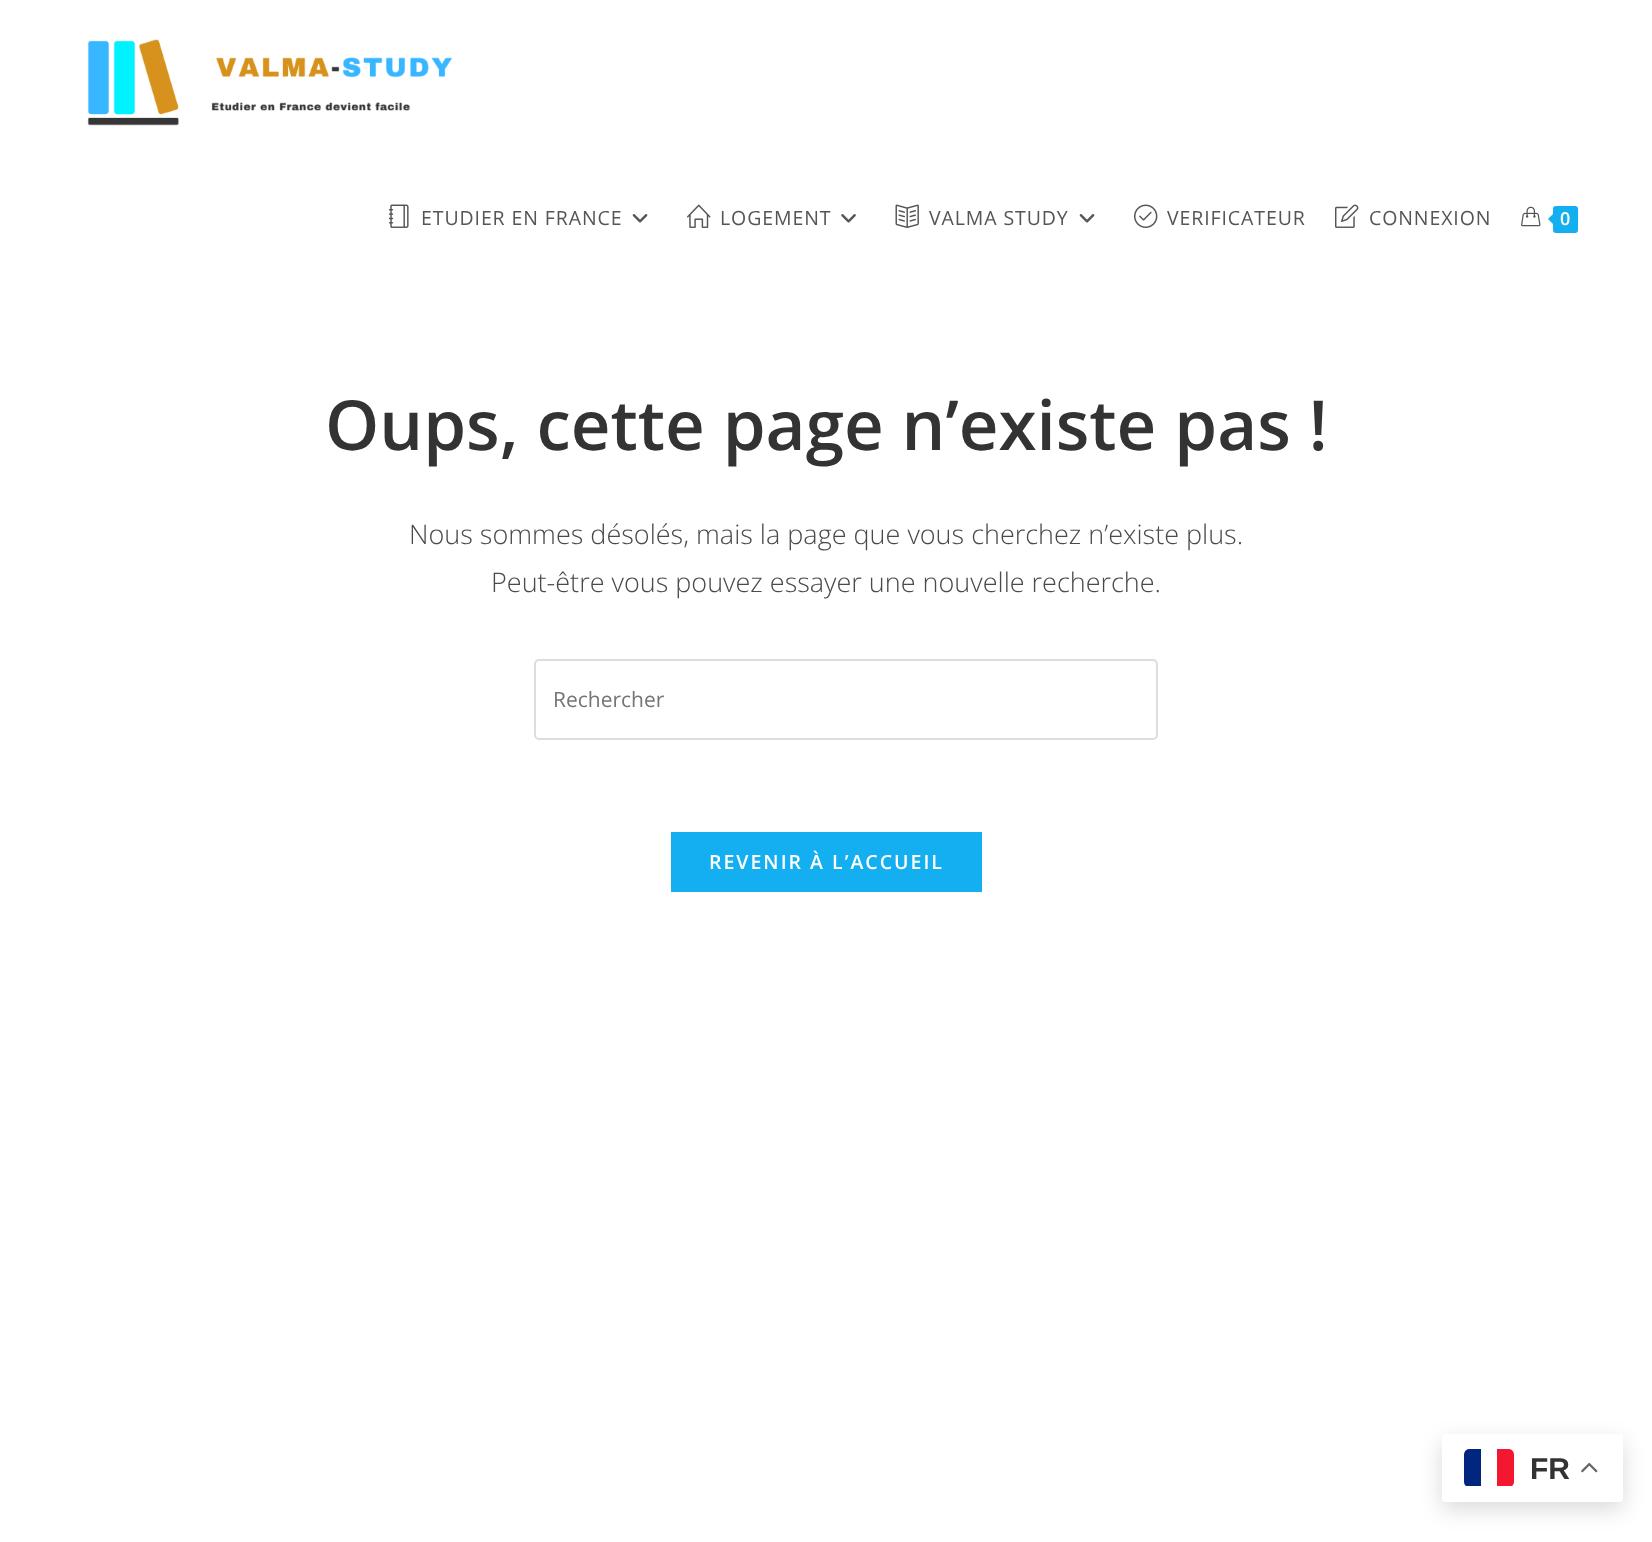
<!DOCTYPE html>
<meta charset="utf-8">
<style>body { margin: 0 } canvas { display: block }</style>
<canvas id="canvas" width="1652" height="1542"></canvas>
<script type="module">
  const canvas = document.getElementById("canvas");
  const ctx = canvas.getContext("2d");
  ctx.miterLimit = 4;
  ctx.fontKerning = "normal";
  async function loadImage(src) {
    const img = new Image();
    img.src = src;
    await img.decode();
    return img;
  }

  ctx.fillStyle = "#ffffff";
  ctx.fillRect(0, 0, 1652, 1542);
  ctx.drawImage(await loadImage("img1.png"), 87, 39, 366, 87);
  ctx.drawImage(await loadImage("img2.png"), 388, 204, 21, 24);
  ctx.letterSpacing = "0.9px";
  ctx.font = "19.5px Open Sans";
  ctx.fillStyle = "#555555";
  ctx.fillText("ETUDIER EN FRANCE", 421, 225);
  ctx.drawImage(await loadImage("img3.png"), 632, 214, 16, 9);
  ctx.drawImage(await loadImage("img4.png"), 687, 204, 24, 24);
  ctx.fillText("LOGEMENT", 720, 225);
  ctx.drawImage(await loadImage("img5.png"), 841, 214, 15, 9);
  ctx.drawImage(await loadImage("img6.png"), 895, 204, 24, 24);
  ctx.fillText("VALMA STUDY", 929, 225);
  ctx.drawImage(await loadImage("img3.png"), 1079, 214, 16, 9);
  ctx.drawImage(await loadImage("img7.png"), 1134, 204, 24, 24);
  ctx.fillText("VERIFICATEUR", 1167, 225);
  ctx.drawImage(await loadImage("img8.png"), 1335, 204, 24, 24);
  ctx.fillText("CONNEXION", 1369, 225);
  ctx.drawImage(await loadImage("img9.png"), 1521, 206, 20, 21);
  ctx.fillStyle = "#13aff0";
  ctx.beginPath();
  ctx.roundRect(1553, 206, 25, 27, 3);
  ctx.fill();
  ctx.beginPath();
  ctx.moveTo(1555.5, 211.5);
  ctx.lineTo(1555.5, 226.5);
  ctx.lineTo(1548, 219);
  ctx.closePath();
  ctx.fill();
  ctx.letterSpacing = "0px";
  ctx.font = "600 18px Open Sans";
  ctx.fillStyle = "#ffffff";
  ctx.fillText("0", 1560, 225);
  ctx.font = "600 69px Open Sans";
  ctx.fillStyle = "#333333";
  ctx.fillText("Oups, cette page n’existe pas !", 325, 450);
  ctx.font = "300 27px Open Sans";
  ctx.fillStyle = "#4a4a4a";
  ctx.fillText("Nous sommes désolés, mais la page que vous cherchez n’existe plus.", 409, 544);
  ctx.fillText("Peut-être vous pouvez essayer une nouvelle recherche.", 491, 592);
  ctx.beginPath();
  ctx.roundRect(535, 660, 622, 79, 4);
  ctx.strokeStyle = "#dddddd";
  ctx.lineWidth = 2;
  ctx.stroke();
  ctx.font = "21px Open Sans";
  ctx.fillStyle = "#757575";
  ctx.fillText("Rechercher", 553, 707);
  ctx.fillStyle = "#13aff0";
  ctx.fillRect(671, 832, 311, 60);
  ctx.letterSpacing = "2px";
  ctx.font = "600 19.5px Open Sans";
  ctx.fillStyle = "#ffffff";
  ctx.fillText("REVENIR À L’ACCUEIL", 709, 869);
  ctx.fillStyle = "rgba(0, 0, 0, 0.15)";
  ctx.filter = "blur(11px)";
  ctx.beginPath();
  ctx.roundRect(1442, 1442, 181, 67, 3);
  ctx.fill();
  ctx.filter = "none";
  ctx.fillStyle = "#ffffff";
  ctx.beginPath();
  ctx.roundRect(1442, 1434, 181, 68, 3);
  ctx.fill();
  ctx.save();
  ctx.beginPath();
  ctx.roundRect(1464, 1449, 50, 38, 5);
  ctx.clip();
  ctx.fillStyle = "#00267f";
  ctx.beginPath();
  ctx.roundRect(1464, 1449, 17, 37, [5, 0, 0, 0]);
  ctx.fill();
  ctx.fillStyle = "#f31830";
  ctx.beginPath();
  ctx.roundRect(1497, 1449, 17, 37, [0, 5, 0, 0]);
  ctx.fill();
  ctx.restore();
  ctx.letterSpacing = "0px";
  ctx.font = "bold 30px Liberation Sans";
  ctx.fillStyle = "#333333";
  ctx.fillText("FR", 1530, 1479);
  ctx.drawImage(await loadImage("img10.png"), 1581, 1462, 17, 11);
</script>
